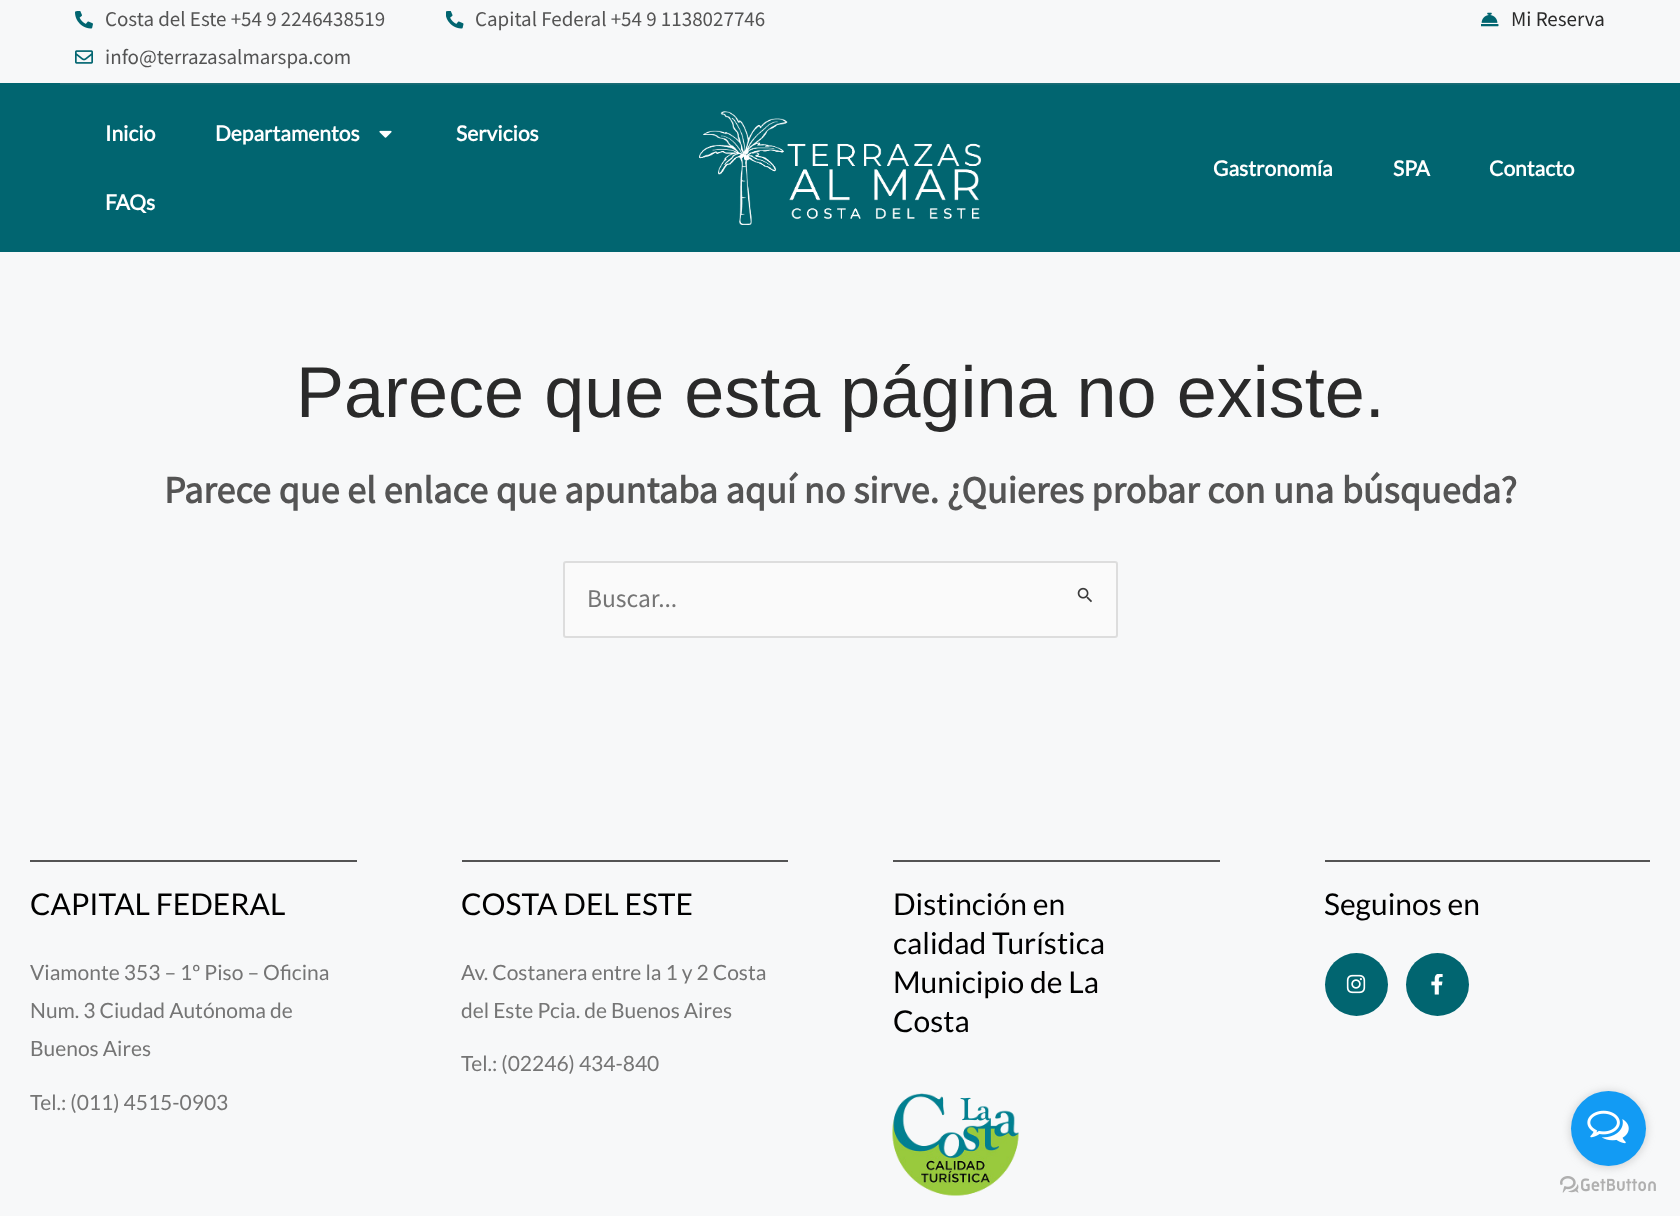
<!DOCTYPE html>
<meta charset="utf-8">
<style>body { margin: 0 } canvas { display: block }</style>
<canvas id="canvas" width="1680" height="1216"></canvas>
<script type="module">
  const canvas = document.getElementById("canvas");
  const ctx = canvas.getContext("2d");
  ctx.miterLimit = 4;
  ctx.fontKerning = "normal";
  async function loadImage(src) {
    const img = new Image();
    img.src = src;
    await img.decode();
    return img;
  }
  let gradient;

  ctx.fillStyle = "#f7f8f9";
  ctx.fillRect(0, 0, 1680, 1216);
  ctx.drawImage(await loadImage("img1.png"), 75, 11, 18, 18);
  ctx.font = "21px Source Sans Pro";
  ctx.fillStyle = "#545454";
  ctx.fillText("Costa del Este +54 9 2246438519", 105, 26);
  ctx.drawImage(await loadImage("img2.png"), 446, 11, 18, 18);
  ctx.fillText("Capital Federal +54 9 1138027746", 475, 26);
  ctx.drawImage(await loadImage("img3.png"), 75, 50, 18, 14);
  ctx.fillText("info@terrazasalmarspa.com", 105, 64);
  ctx.drawImage(await loadImage("img4.png"), 1481, 12, 18, 15);
  ctx.fillStyle = "#2a2a2a";
  ctx.fillText("Mi Reserva", 1511, 26);
  ctx.fillStyle = "#016570";
  ctx.fillRect(0, 83, 1680, 169);
  ctx.fillStyle = "#116973";
  ctx.fillRect(60, 83, 1560, 2);
  gradient = ctx.createLinearGradient(840, 84, 840, 252);
  gradient.addColorStop(0, "rgba(1, 101, 112, 0.8)");
  gradient.addColorStop(1, "rgba(1, 101, 112, 0)");
  ctx.fillStyle = gradient;
  ctx.fillRect(60, 84, 1560, 1);
  ctx.fillStyle = "rgba(111, 128, 130, 0.12)";
  ctx.fillRect(60, 83, 1560, 2);
  ctx.font = "bold 21px Lato";
  ctx.fillStyle = "#ffffff";
  ctx.fillText("Inicio", 105, 141);
  ctx.fillText("Departamentos", 215, 141);
  ctx.drawImage(await loadImage("img5.png"), 379, 130, 13, 8);
  ctx.fillText("Servicios", 456, 141);
  ctx.fillText("FAQs", 105, 210);
  ctx.drawImage(await loadImage("img6.png"), 699, 111, 282, 114);
  ctx.fillText("Gastronomía", 1213, 176);
  ctx.fillText("SPA", 1393, 176);
  ctx.fillText("Contacto", 1489, 176);
  ctx.font = "72px Liberation Sans";
  ctx.fillStyle = "#2a2a2a";
  ctx.fillText("Parece que esta página no existe.", 296, 417);
  ctx.font = "bold 38.25px Source Sans Pro";
  ctx.fillStyle = "#545454";
  ctx.fillText("Parece que el enlace que apuntaba aquí no sirve. ¿Quieres probar con una búsqueda?", 164, 503);
  ctx.fillStyle = "#fafafa";
  ctx.beginPath();
  ctx.roundRect(564, 562, 553, 75, 2);
  ctx.fill();
  ctx.strokeStyle = "#dddddd";
  ctx.lineWidth = 2;
  ctx.stroke();
  ctx.font = "25.5px Source Sans Pro";
  ctx.fillStyle = "#757575";
  ctx.fillText("Buscar...", 587, 607);
  ctx.drawImage(await loadImage("img7.png"), 1077, 587, 15, 16);
  ctx.fillStyle = "#545454";
  ctx.fillRect(30, 860, 327, 2);
  ctx.font = "30px Lato";
  ctx.fillStyle = "#000000";
  ctx.fillText("CAPITAL FEDERAL", 30, 915);
  ctx.font = "21px Lato";
  ctx.fillStyle = "#757575";
  ctx.fillText("Viamonte 353 – 1º Piso – Oficina", 30, 980);
  ctx.fillText("Num. 3 Ciudad Autónoma de", 30, 1018);
  ctx.fillText("Buenos Aires", 30, 1056);
  ctx.fillText("Tel.: (011) 4515-0903", 30, 1110);
  ctx.fillStyle = "#545454";
  ctx.fillRect(462, 860, 326, 2);
  ctx.font = "30px Lato";
  ctx.fillStyle = "#000000";
  ctx.fillText("COSTA DEL ESTE", 461, 915);
  ctx.font = "21px Lato";
  ctx.fillStyle = "#757575";
  ctx.fillText("Av. Costanera entre la 1 y 2 Costa", 461, 980);
  ctx.fillText("del Este Pcia. de Buenos Aires", 461, 1018);
  ctx.fillText("Tel.: (02246) 434-840", 461, 1071);
  ctx.fillStyle = "#545454";
  ctx.fillRect(893, 860, 327, 2);
  ctx.font = "30px Lato";
  ctx.fillStyle = "#000000";
  ctx.fillText("Distinción en", 893, 915);
  ctx.fillText("calidad Turística", 893, 954);
  ctx.fillText("Municipio de La", 893, 993);
  ctx.fillText("Costa", 893, 1032);
  ctx.drawImage(await loadImage("img8.png"), 892, 1093, 127, 103);
  ctx.fillStyle = "#545454";
  ctx.fillRect(1325, 860, 325, 2);
  ctx.fillStyle = "#000000";
  ctx.fillText("Seguinos en", 1324, 915);
  ctx.fillStyle = "#016570";
  ctx.beginPath();
  ctx.arc(1356.5, 984.5, 31.5, 0, Math.PI * 2);
  ctx.fill();
  ctx.drawImage(await loadImage("img9.png"), 1346, 974, 20, 20);
  ctx.beginPath();
  ctx.arc(1437.5, 984.5, 31.5, 0, Math.PI * 2);
  ctx.fill();
  ctx.drawImage(await loadImage("img10.png"), 1431, 974, 12, 21);
  ctx.drawImage(await loadImage("img12.png"), 1560, 1176, 96, 17);
  ctx.fillStyle = "rgba(136, 136, 136, 0.4)";
  ctx.filter = "blur(5px)";
  ctx.beginPath();
  ctx.roundRect(1571, 1092, 75, 75, 37.5);
  ctx.fill();
  ctx.filter = "none";
  ctx.fillStyle = "#129bf4";
  ctx.beginPath();
  ctx.arc(1608.5, 1128.5, 37.5, 0, Math.PI * 2);
  ctx.fill();
  ctx.drawImage(await loadImage("img11.png"), 1587, 1110, 42, 34);
</script>
